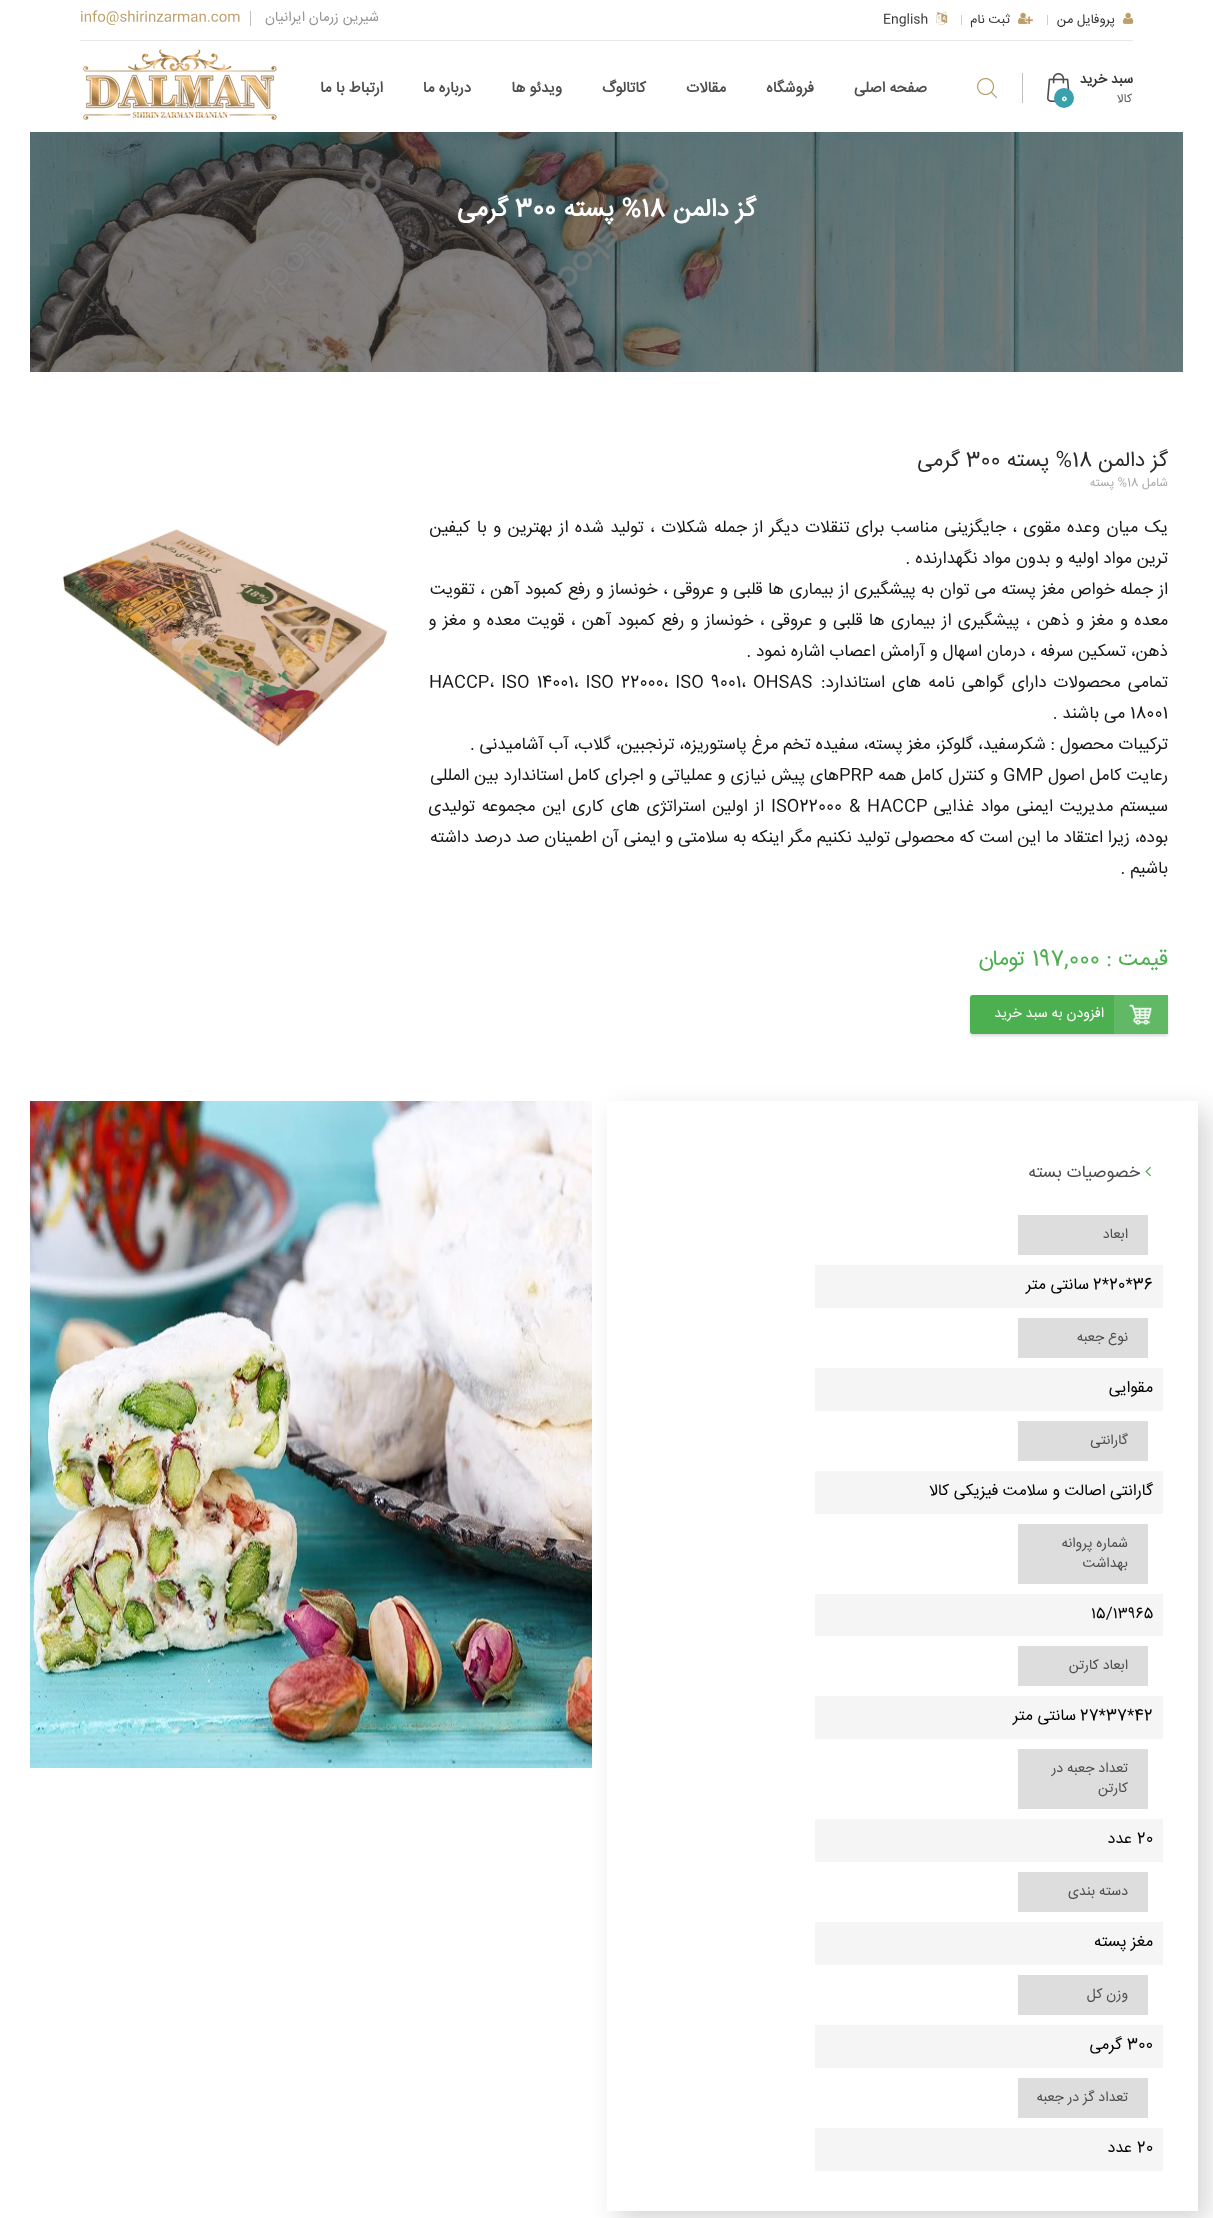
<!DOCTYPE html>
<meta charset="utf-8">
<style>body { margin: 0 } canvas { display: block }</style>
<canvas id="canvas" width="1213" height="2218"></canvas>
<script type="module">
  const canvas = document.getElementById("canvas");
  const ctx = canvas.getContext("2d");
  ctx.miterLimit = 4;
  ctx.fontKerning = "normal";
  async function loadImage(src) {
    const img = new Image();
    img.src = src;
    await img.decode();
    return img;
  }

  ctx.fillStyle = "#ffffff";
  ctx.fillRect(0, 0, 1213, 2218);
  ctx.fillStyle = "#e9e9e9";
  ctx.fillRect(80, 40, 1053, 1);
  ctx.drawImage(await loadImage("img1.png"), 1123, 12, 11, 12);
  ctx.direction = "rtl";
  ctx.font = "13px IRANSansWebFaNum";
  ctx.fillStyle = "#333333";
  ctx.fillText("پروفایل من", 1115, 23);
  ctx.fillStyle = "#cdcdcd";
  ctx.fillRect(1047, 15, 1, 10);
  ctx.drawImage(await loadImage("img2.png"), 1018, 12, 15, 12);
  ctx.fillStyle = "#333333";
  ctx.fillText("ثبت نام", 1010, 23);
  ctx.fillStyle = "#cdcdcd";
  ctx.fillRect(961, 15, 1, 10);
  ctx.drawImage(await loadImage("img3.png"), 936, 11, 12, 14);
  ctx.direction = "ltr";
  ctx.fillStyle = "#333333";
  ctx.fillText("English", 883, 23);
  ctx.direction = "rtl";
  ctx.font = "14px IRANSansWebFaNum";
  ctx.fillStyle = "#959595";
  ctx.fillText("شیرین زرمان ایرانیان", 379, 21);
  ctx.fillStyle = "#c0bfbf";
  ctx.fillRect(250, 11, 1, 15);
  ctx.direction = "ltr";
  ctx.fillStyle = "#bc9e6b";
  ctx.fillText("info@shirinzarman.com", 80, 21);
  ctx.direction = "rtl";
  ctx.font = "bold 14px IRANSansWebFaNum";
  ctx.fillStyle = "#333333";
  ctx.fillText("سبد خرید", 1133, 83);
  ctx.font = "12px IRANSansWebFaNum";
  ctx.fillStyle = "#5a5a5a";
  ctx.fillText("کالا", 1132, 102);
  ctx.drawImage(await loadImage("img4.png"), 1047, 73, 23, 29);
  ctx.fillStyle = "#39a0ad";
  ctx.beginPath();
  ctx.arc(1064, 98, 10, 0, Math.PI * 2);
  ctx.fill();
  ctx.direction = "ltr";
  ctx.font = "bold 13px IRANSansWebFaNum";
  ctx.fillStyle = "#ffffff";
  ctx.fillText("0", 1061, 102);
  ctx.fillStyle = "#bfbfbf";
  ctx.fillRect(1022, 73, 1, 30);
  ctx.drawImage(await loadImage("img5.png"), 977, 78, 20, 20);
  ctx.direction = "rtl";
  ctx.font = "bold 15px IRANSansWebFaNum";
  ctx.fillStyle = "#4d4d4d";
  ctx.fillText("صفحه اصلی", 927, 92);
  ctx.fillText("فروشگاه", 814, 92);
  ctx.fillText("مقالات", 726, 92);
  ctx.fillText("کاتالوگ", 646, 92);
  ctx.fillText("ویدئو ها", 562, 92);
  ctx.fillText("درباره ما", 471, 92);
  ctx.fillText("ارتباط با ما", 383, 92);
  ctx.drawImage(await loadImage("img6.png"), 83, 49, 194, 71);
  ctx.fillStyle = "#333333";
  ctx.fillRect(30, 132, 1153, 240);
  ctx.drawImage(await loadImage("img7.png"), 30, 132, 1153, 240);
  ctx.font = "bold 25px IRANSansWebFaNum";
  ctx.fillStyle = "#ffffff";
  ctx.fillText("گز دالمن", 756, 216);
  ctx.direction = "ltr";
  ctx.fillText("18", 641, 216);
  ctx.direction = "rtl";
  ctx.fillText("% پسته", 641, 216);
  ctx.direction = "ltr";
  ctx.fillText("300", 515, 216);
  ctx.direction = "rtl";
  ctx.fillText("گرمی", 508, 216);
  ctx.font = "21px IRANSansWebFaNum";
  ctx.fillStyle = "#2b2b2b";
  ctx.fillText("گز دالمن", 1168, 466);
  ctx.direction = "ltr";
  ctx.fillText("18", 1072, 466);
  ctx.direction = "rtl";
  ctx.fillText("% پسته", 1072, 466);
  ctx.direction = "ltr";
  ctx.fillText("300", 966, 466);
  ctx.direction = "rtl";
  ctx.fillText("گرمی", 960, 466);
  ctx.font = "12px IRANSansWebFaNum";
  ctx.fillStyle = "#ababab";
  ctx.fillText("شامل", 1168, 486);
  ctx.direction = "ltr";
  ctx.fillText("18", 1127, 486);
  ctx.direction = "rtl";
  ctx.fillText("% پسته", 1127, 486);
  ctx.wordSpacing = "1.6px";
  ctx.font = "17px IRANSansWebFaNum";
  ctx.fillStyle = "#161616";
  ctx.fillText("یک میان وعده مقوی ، جایگزینی مناسب برای تنقلات دیگر از جمله شکلات ، تولید شده از بهترین و با کیفین", 1168, 532);
  ctx.wordSpacing = "0px";
  ctx.fillText("ترین مواد اولیه و بدون مواد نگهدارنده .", 1168, 563);
  ctx.wordSpacing = "0.6px";
  ctx.fillText("از جمله خواص مغز پسته می توان به پیشگیری از بیماری ها قلبی و عروقی ، خونساز و رفع کمبود آهن ، تقویت", 1168, 594);
  ctx.wordSpacing = "1.6px";
  ctx.fillText("معده و مغز و ذهن ، پیشگیری از بیماری ها قلبی و عروقی ، خونساز و رفع کمبود آهن ، قویت معده و مغز و", 1168, 625);
  ctx.wordSpacing = "0px";
  ctx.fillText("ذهن، تسکین سرفه ، درمان اسهال و آرامش اعصاب اشاره نمود .", 1168, 656);
  ctx.wordSpacing = "2.25px";
  ctx.fillText("تمامی محصولات دارای گواهی نامه های استاندارد:", 1168, 687);
  ctx.direction = "ltr";
  ctx.fillText("HACCP، ISO 14001، ISO 22000، ISO 9001، OHSAS", 429, 687);
  ctx.wordSpacing = "0px";
  ctx.fillText("18001", 1130, 718);
  ctx.direction = "rtl";
  ctx.fillText("می باشند .", 1125, 718);
  ctx.fillText("ترکیبات محصول : شکرسفید، گلوکز، مغز پسته، سفیده تخم مرغ پاستوریزه، ترنجبین، گلاب، آب آشامیدنی .", 1168, 749);
  ctx.fillText("رعایت کامل اصول", 1168, 780);
  ctx.direction = "ltr";
  ctx.fillText("GMP", 1003, 780);
  ctx.wordSpacing = "0.1px";
  ctx.direction = "rtl";
  ctx.fillText("و کنترل کامل همه", 998, 780);
  ctx.wordSpacing = "0px";
  ctx.direction = "ltr";
  ctx.fillText("PRP", 839, 780);
  ctx.wordSpacing = "0.1px";
  ctx.direction = "rtl";
  ctx.fillText("های پیش نیازی و عملیاتی و اجرای کامل استاندارد بین المللی", 839, 780);
  ctx.wordSpacing = "2px";
  ctx.fillText("سیستم مدیریت ایمنی مواد غذایی", 1168, 811);
  ctx.direction = "ltr";
  ctx.fillText("ISO22000 & HACCP", 771, 811);
  ctx.direction = "rtl";
  ctx.fillText("از اولین استراتژی های کاری این مجموعه تولیدی", 764, 811);
  ctx.wordSpacing = "0px";
  ctx.fillText("بوده، زیرا اعتقاد ما این است که محصولی تولید نکنیم مگر اینکه به سلامتی و ایمنی آن اطمینان صد درصد داشته", 1168, 842);
  ctx.fillText("باشیم .", 1168, 873);
  ctx.font = "22px IRANSansWebFaNum";
  ctx.fillStyle = "#4caf50";
  ctx.fillText("قیمت :", 1168, 965);
  ctx.direction = "ltr";
  ctx.fillText("197,000", 1032, 965);
  ctx.direction = "rtl";
  ctx.fillText("تومان", 1026, 965);
  ctx.fillStyle = "rgba(0, 0, 0, 0.15)";
  ctx.filter = "blur(1.5px)";
  ctx.beginPath();
  ctx.roundRect(970, 997, 198, 39, 3);
  ctx.fill();
  ctx.filter = "none";
  ctx.fillStyle = "#4caf50";
  ctx.beginPath();
  ctx.roundRect(970, 995, 198, 39, 3);
  ctx.fill();
  ctx.fillStyle = "#62b965";
  ctx.fillRect(1114, 995, 54, 39);
  ctx.drawImage(await loadImage("img8.png"), 1129, 1004, 23, 21);
  ctx.font = "14px IRANSansWebFaNum";
  ctx.fillStyle = "#ffffff";
  ctx.fillText("افزودن به سبد خرید", 1104, 1017);
  ctx.drawImage(await loadImage("img9.png"), 62, 529, 326, 218);
  ctx.drawImage(await loadImage("img11.png"), 30, 1101, 562, 667);
  ctx.save();
  ctx.beginPath();
  ctx.moveTo(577, 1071);
  ctx.lineTo(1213, 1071);
  ctx.lineTo(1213, 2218);
  ctx.lineTo(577, 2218);
  ctx.closePath();
  ctx.moveTo(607, 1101);
  ctx.lineTo(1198, 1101);
  ctx.lineTo(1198, 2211);
  ctx.lineTo(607, 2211);
  ctx.closePath();
  ctx.clip("evenodd");
  ctx.fillStyle = "rgba(0, 0, 0, 0.16)";
  ctx.filter = "blur(13px)";
  ctx.beginPath();
  ctx.rect(617, 1111, 591, 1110);
  ctx.fill();
  ctx.filter = "none";
  ctx.restore();
  ctx.drawImage(await loadImage("img10.png"), 1145, 1166, 6, 11);
  ctx.font = "17px IRANSansWebFaNum";
  ctx.fillStyle = "#4d4d4d";
  ctx.fillText("خصوصیات بسته", 1140, 1177);
  ctx.fillStyle = "#dddddd";
  ctx.fillRect(1018, 1215, 130, 40);
  ctx.font = "14px IRANSansWebFaNum";
  ctx.fillStyle = "#4d4d4d";
  ctx.fillText("ابعاد", 1128, 1238);
  ctx.fillStyle = "#f5f5f5";
  ctx.fillRect(815, 1265, 348, 43);
  ctx.direction = "ltr";
  ctx.font = "16px IRANSansWebFaNum";
  ctx.fillStyle = "#000000";
  ctx.fillText("2*20*36", 1093, 1289);
  ctx.direction = "rtl";
  ctx.fillText("سانتی متر", 1089, 1289);
  ctx.fillStyle = "#dddddd";
  ctx.fillRect(1018, 1318, 130, 40);
  ctx.font = "14px IRANSansWebFaNum";
  ctx.fillStyle = "#4d4d4d";
  ctx.fillText("نوع جعبه", 1128, 1341);
  ctx.fillStyle = "#f5f5f5";
  ctx.fillRect(815, 1368, 348, 43);
  ctx.font = "16px IRANSansWebFaNum";
  ctx.fillStyle = "#000000";
  ctx.fillText("مقوایی", 1153, 1392);
  ctx.fillStyle = "#dddddd";
  ctx.fillRect(1018, 1421, 130, 40);
  ctx.font = "14px IRANSansWebFaNum";
  ctx.fillStyle = "#4d4d4d";
  ctx.fillText("گارانتی", 1128, 1444);
  ctx.fillStyle = "#f5f5f5";
  ctx.fillRect(815, 1471, 348, 43);
  ctx.font = "16px IRANSansWebFaNum";
  ctx.fillStyle = "#000000";
  ctx.fillText("گارانتی اصالت و سلامت فیزیکی کالا", 1153, 1495);
  ctx.fillStyle = "#dddddd";
  ctx.fillRect(1018, 1524, 130, 60);
  ctx.font = "14px IRANSansWebFaNum";
  ctx.fillStyle = "#4d4d4d";
  ctx.fillText("شماره پروانه", 1128, 1547);
  ctx.fillText("بهداشت", 1128, 1567);
  ctx.fillStyle = "#f5f5f5";
  ctx.fillRect(815, 1594, 348, 42);
  ctx.direction = "ltr";
  ctx.font = "16px IRANSansWebFaNum";
  ctx.fillStyle = "#000000";
  ctx.fillText("۱۵/۱۳۹۶۵", 1091, 1618);
  ctx.fillStyle = "#dddddd";
  ctx.fillRect(1018, 1646, 130, 40);
  ctx.direction = "rtl";
  ctx.font = "14px IRANSansWebFaNum";
  ctx.fillStyle = "#4d4d4d";
  ctx.fillText("ابعاد کارتن", 1128, 1669);
  ctx.fillStyle = "#f5f5f5";
  ctx.fillRect(815, 1696, 348, 43);
  ctx.direction = "ltr";
  ctx.font = "16px IRANSansWebFaNum";
  ctx.fillStyle = "#000000";
  ctx.fillText("27*37*42", 1080, 1720);
  ctx.direction = "rtl";
  ctx.fillText("سانتی متر", 1076, 1720);
  ctx.fillStyle = "#dddddd";
  ctx.fillRect(1018, 1749, 130, 60);
  ctx.font = "14px IRANSansWebFaNum";
  ctx.fillStyle = "#4d4d4d";
  ctx.fillText("تعداد جعبه در", 1128, 1772);
  ctx.fillText("کارتن", 1128, 1792);
  ctx.fillStyle = "#f5f5f5";
  ctx.fillRect(815, 1819, 348, 43);
  ctx.direction = "ltr";
  ctx.font = "16px IRANSansWebFaNum";
  ctx.fillStyle = "#000000";
  ctx.fillText("20", 1137, 1843);
  ctx.direction = "rtl";
  ctx.fillText("عدد", 1132, 1843);
  ctx.fillStyle = "#dddddd";
  ctx.fillRect(1018, 1872, 130, 40);
  ctx.font = "14px IRANSansWebFaNum";
  ctx.fillStyle = "#4d4d4d";
  ctx.fillText("دسته بندی", 1128, 1895);
  ctx.fillStyle = "#f5f5f5";
  ctx.fillRect(815, 1922, 348, 43);
  ctx.font = "16px IRANSansWebFaNum";
  ctx.fillStyle = "#000000";
  ctx.fillText("مغز پسته", 1153, 1946);
  ctx.fillStyle = "#dddddd";
  ctx.fillRect(1018, 1975, 130, 40);
  ctx.font = "14px IRANSansWebFaNum";
  ctx.fillStyle = "#4d4d4d";
  ctx.fillText("وزن کل", 1128, 1998);
  ctx.fillStyle = "#f5f5f5";
  ctx.fillRect(815, 2025, 348, 43);
  ctx.direction = "ltr";
  ctx.font = "16px IRANSansWebFaNum";
  ctx.fillStyle = "#000000";
  ctx.fillText("300", 1127, 2049);
  ctx.direction = "rtl";
  ctx.fillText("گرمی", 1122, 2049);
  ctx.fillStyle = "#dddddd";
  ctx.fillRect(1018, 2078, 130, 40);
  ctx.font = "14px IRANSansWebFaNum";
  ctx.fillStyle = "#4d4d4d";
  ctx.fillText("تعداد گز در جعبه", 1128, 2101);
  ctx.fillStyle = "#f5f5f5";
  ctx.fillRect(815, 2128, 348, 43);
  ctx.direction = "ltr";
  ctx.font = "16px IRANSansWebFaNum";
  ctx.fillStyle = "#000000";
  ctx.fillText("20", 1137, 2152);
  ctx.direction = "rtl";
  ctx.fillText("عدد", 1132, 2152);
</script>
